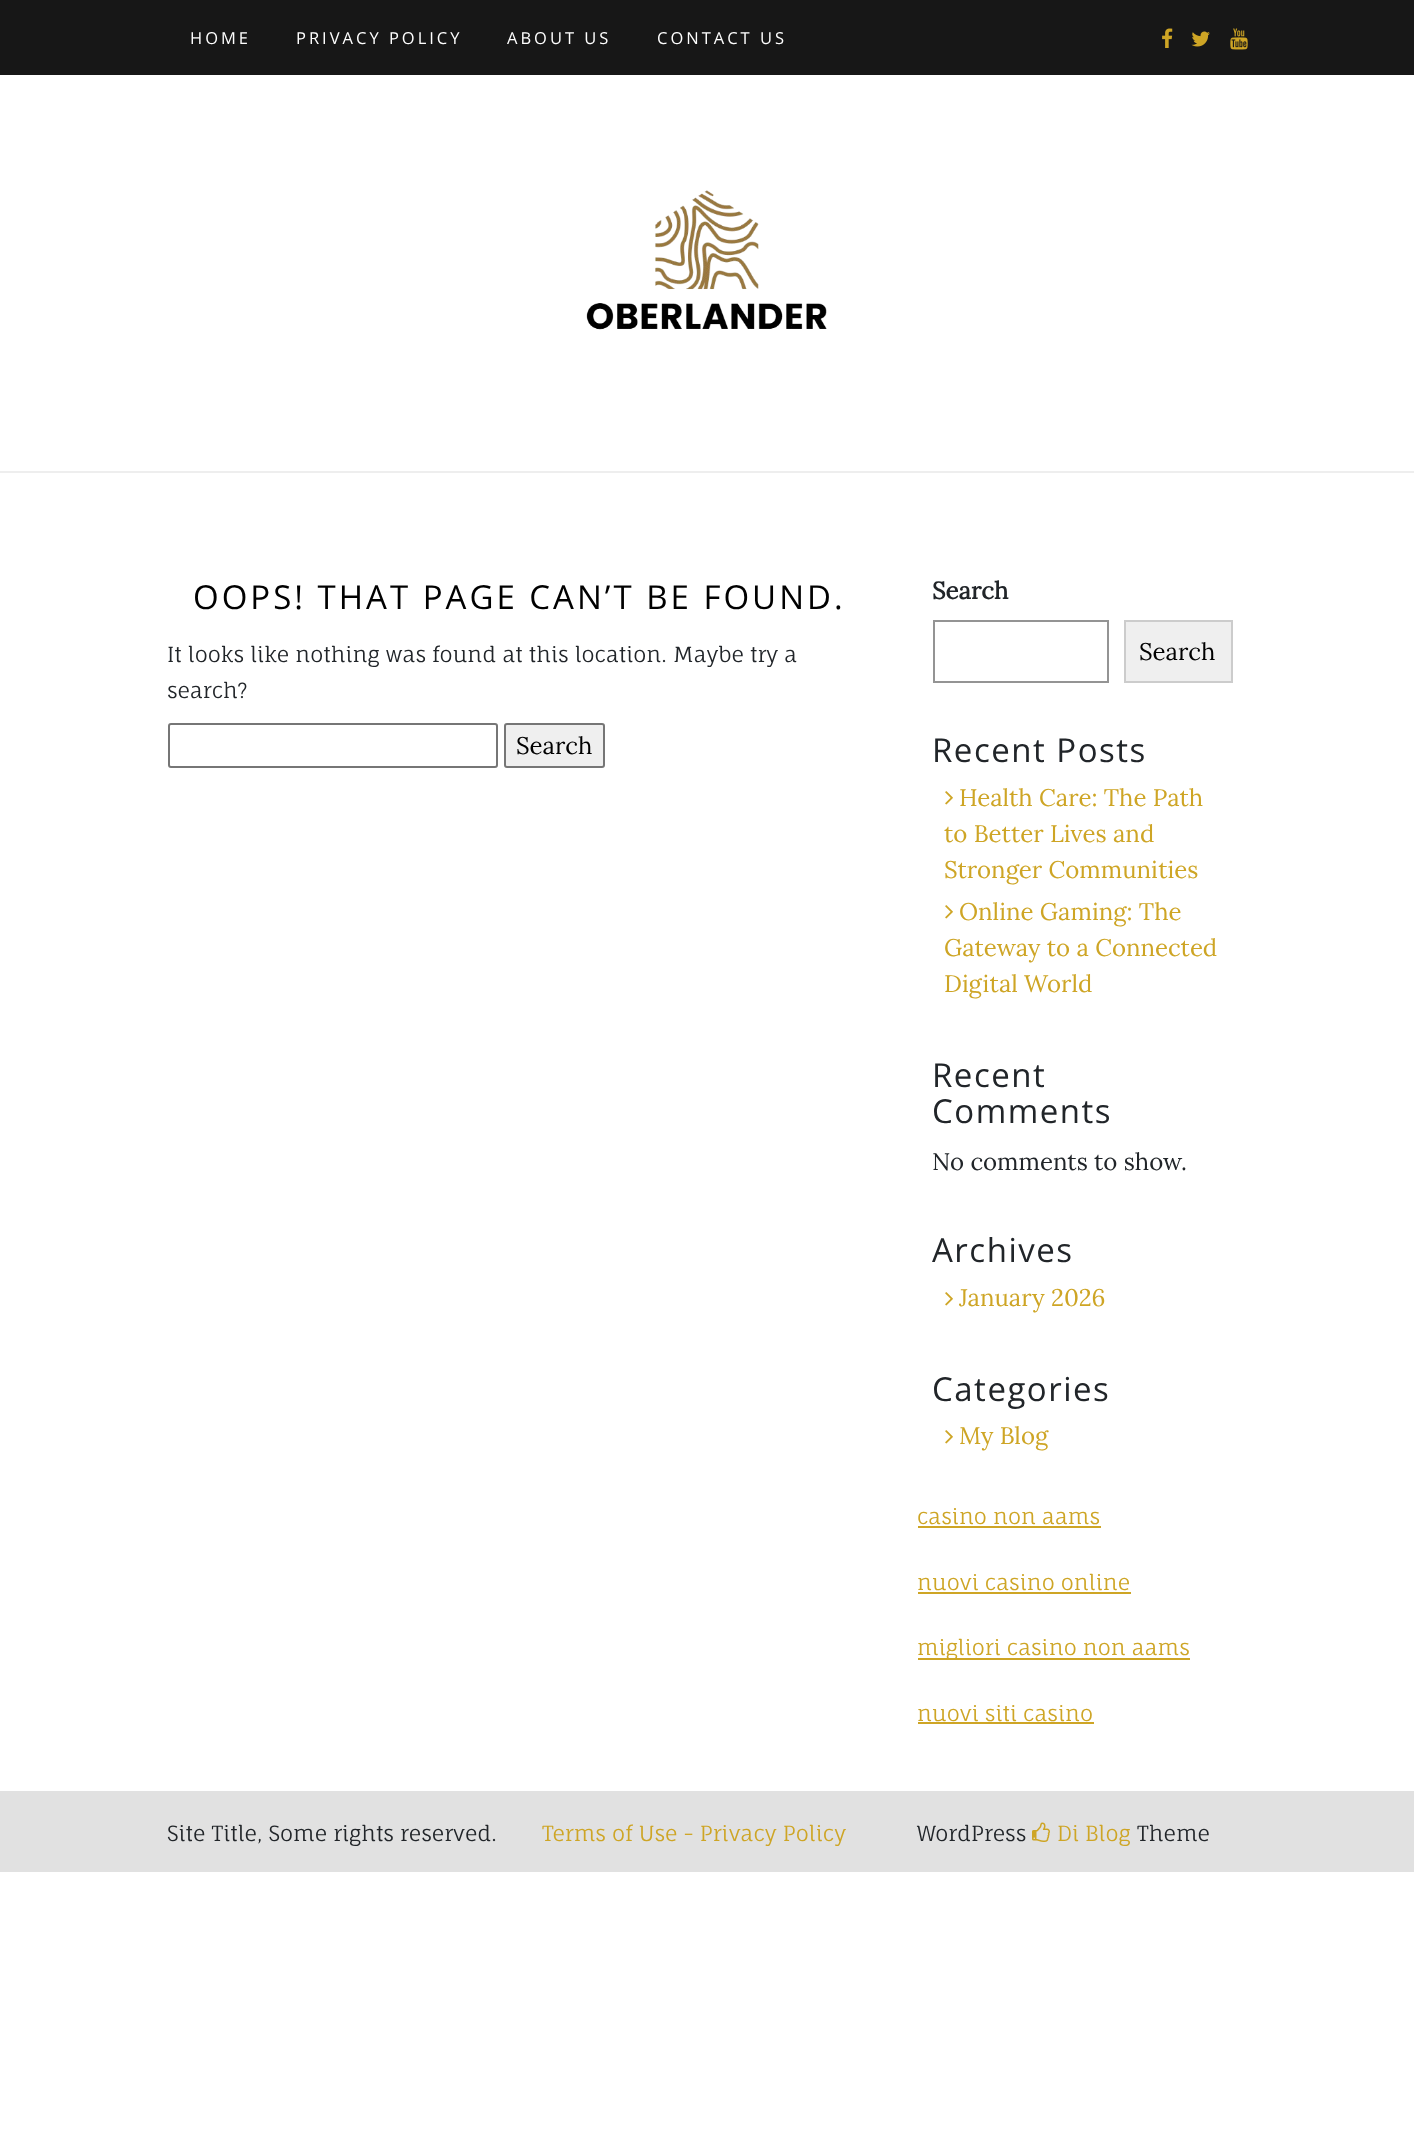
<!DOCTYPE html>
<meta charset="utf-8">
<style>body { margin: 0 } canvas { display: block }</style>
<canvas id="canvas" width="1414" height="2134"></canvas>
<script type="module">
  const canvas = document.getElementById("canvas");
  const ctx = canvas.getContext("2d");
  ctx.miterLimit = 4;
  ctx.fontKerning = "normal";
  async function loadImage(src) {
    const img = new Image();
    img.src = src;
    await img.decode();
    return img;
  }

  ctx.fillStyle = "#ffffff";
  ctx.fillRect(0, 0, 1414, 2134);
  ctx.fillStyle = "#171717";
  ctx.fillRect(0, 0, 1414, 75);
  ctx.letterSpacing = "3px";
  ctx.font = "16.5px Open Sans";
  ctx.fillStyle = "#ffffff";
  ctx.fillText("HOME", 190, 44);
  ctx.fillText("PRIVACY POLICY", 296, 44);
  ctx.fillText("ABOUT US", 507, 44);
  ctx.fillText("CONTACT US", 657, 44);
  ctx.drawImage(await loadImage("img1.png"), 1162, 28, 11, 20);
  ctx.drawImage(await loadImage("img2.png"), 1191, 31, 19, 16);
  ctx.drawImage(await loadImage("img3.png"), 1230, 28, 18, 22);
  ctx.fillStyle = "#eeeeee";
  ctx.fillRect(0, 471, 1414, 2);
  ctx.drawImage(await loadImage("img4.png"), 586, 190, 241, 140);
  ctx.font = "33px Open Sans";
  ctx.fillStyle = "#000000";
  ctx.fillText("OOPS! THAT PAGE CAN’T BE FOUND.", 193, 609);
  ctx.letterSpacing = "0px";
  ctx.font = "21px Fauna One";
  ctx.fillStyle = "#212529";
  ctx.fillText("It looks like nothing was found at this location. Maybe try a", 167, 662);
  ctx.fillText("search?", 167, 698);
  ctx.beginPath();
  ctx.roundRect(169, 724, 328, 43, 2);
  ctx.strokeStyle = "#767676";
  ctx.lineWidth = 2;
  ctx.stroke();
  ctx.fillStyle = "#efefef";
  ctx.beginPath();
  ctx.roundRect(505, 724, 99, 43, 2);
  ctx.fill();
  ctx.stroke();
  ctx.font = "24px Lora";
  ctx.fillStyle = "#000000";
  ctx.fillText("Search", 516, 754);
  ctx.font = "bold 24px Lora";
  ctx.fillStyle = "#212529";
  ctx.fillText("Search", 932, 599);
  ctx.strokeStyle = "#949494";
  ctx.strokeRect(934, 621, 174, 61);
  ctx.fillStyle = "#efefef";
  ctx.beginPath();
  ctx.rect(1125, 621, 107, 61);
  ctx.fill();
  ctx.strokeStyle = "#cccccc";
  ctx.stroke();
  ctx.font = "24px Lora";
  ctx.fillStyle = "#000000";
  ctx.fillText("Search", 1139, 660);
  ctx.letterSpacing = "1.5px";
  ctx.font = "33px Open Sans";
  ctx.fillStyle = "#212529";
  ctx.fillText("Recent Posts", 932, 762);
  ctx.drawImage(await loadImage("img5.png"), 945, 791, 8, 14);
  ctx.letterSpacing = "0px";
  ctx.font = "24px Lora";
  ctx.fillStyle = "#cea525";
  ctx.fillText("Health Care: The Path", 959, 806);
  ctx.fillText("to Better Lives and", 944, 842);
  ctx.fillText("Stronger Communities", 944, 878);
  ctx.drawImage(await loadImage("img5.png"), 945, 905, 8, 14);
  ctx.fillText("Online Gaming: The", 959, 920);
  ctx.fillText("Gateway to a Connected", 944, 956);
  ctx.fillText("Digital World", 944, 992);
  ctx.letterSpacing = "1.5px";
  ctx.font = "33px Open Sans";
  ctx.fillStyle = "#212529";
  ctx.fillText("Recent", 932, 1087);
  ctx.fillText("Comments", 932, 1123);
  ctx.letterSpacing = "0px";
  ctx.font = "24px Lora";
  ctx.fillText("No comments to show.", 932, 1170);
  ctx.letterSpacing = "1.5px";
  ctx.font = "33px Open Sans";
  ctx.fillText("Archives", 932, 1262);
  ctx.drawImage(await loadImage("img5.png"), 945, 1292, 8, 14);
  ctx.letterSpacing = "0px";
  ctx.font = "24px Lora";
  ctx.fillStyle = "#cea525";
  ctx.fillText("January 2026", 959, 1306);
  ctx.letterSpacing = "1.5px";
  ctx.font = "33px Open Sans";
  ctx.fillStyle = "#212529";
  ctx.fillText("Categories", 932, 1401);
  ctx.drawImage(await loadImage("img5.png"), 945, 1430, 8, 14);
  ctx.letterSpacing = "0px";
  ctx.font = "24px Lora";
  ctx.fillStyle = "#cea525";
  ctx.fillText("My Blog", 959, 1444);
  ctx.font = "21px Fauna One";
  ctx.fillText("casino non aams", 917, 1524);
  ctx.fillRect(918, 1526, 183, 2);
  ctx.fillText("nuovi casino online", 917, 1590);
  ctx.fillRect(918, 1592, 213, 2);
  ctx.fillRect(918, 1658, 272, 2);
  ctx.fillText("migliori casino non aams", 917, 1655);
  ctx.fillText("nuovi siti casino", 917, 1721);
  ctx.fillRect(918, 1722, 176, 2);
  ctx.fillStyle = "#e1e1e1";
  ctx.fillRect(0, 1791, 1414, 81);
  ctx.fillStyle = "#212529";
  ctx.fillText("Site Title, Some rights reserved.", 167, 1841);
  ctx.fillStyle = "#cea525";
  ctx.fillText("Terms of Use - Privacy Policy", 542, 1841);
  ctx.fillStyle = "#212529";
  ctx.fillText("WordPress", 917, 1841);
  ctx.drawImage(await loadImage("img6.png"), 1032, 1822, 18, 20);
  ctx.fillStyle = "#cea525";
  ctx.fillText("Di Blog", 1057, 1841);
  ctx.fillStyle = "#212529";
  ctx.fillText("Theme", 1137, 1841);
</script>
